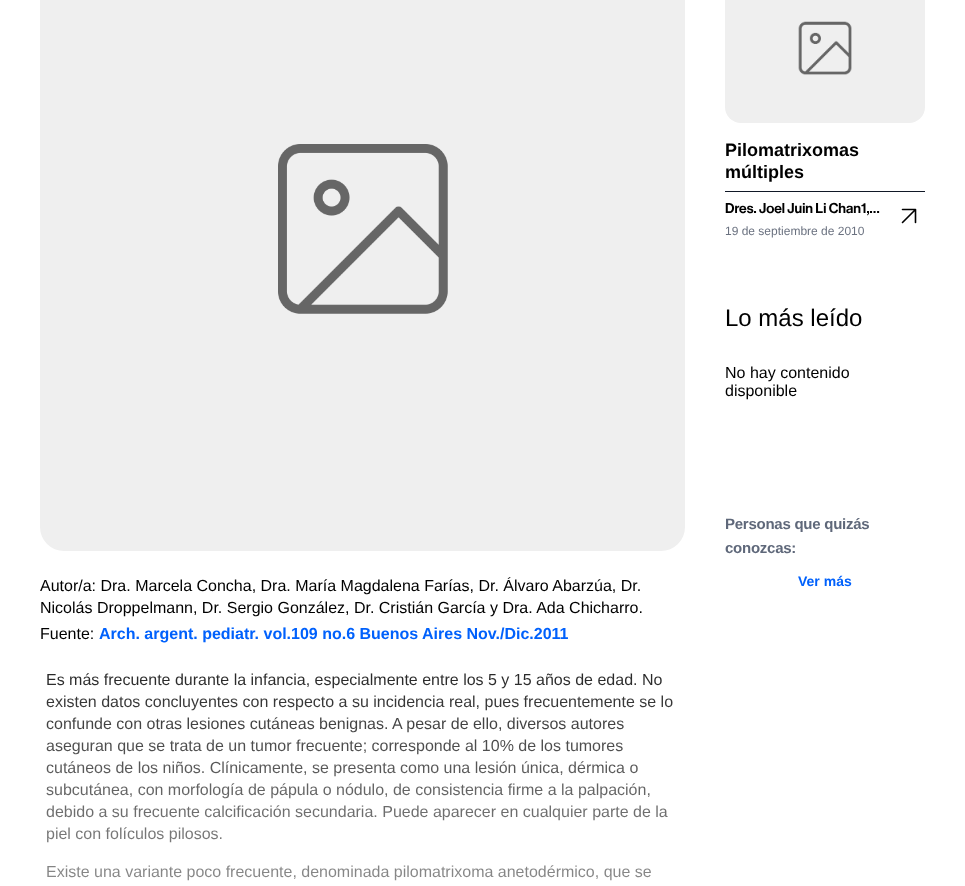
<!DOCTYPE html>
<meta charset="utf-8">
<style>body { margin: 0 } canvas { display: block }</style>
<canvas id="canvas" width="965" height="886"></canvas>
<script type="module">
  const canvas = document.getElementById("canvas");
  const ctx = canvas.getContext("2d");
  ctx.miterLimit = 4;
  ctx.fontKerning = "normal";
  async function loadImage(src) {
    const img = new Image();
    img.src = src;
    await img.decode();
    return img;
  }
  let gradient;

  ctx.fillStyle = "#ffffff";
  ctx.fillRect(0, 0, 965, 886);
  ctx.drawImage(await loadImage("img1.png"), 725, 0, 200, 123);
  ctx.font = "bold 18px Liberation Sans";
  ctx.fillStyle = "#000000";
  ctx.fillText("Pilomatrixomas", 725, 156);
  ctx.fillText("múltiples", 725, 178);
  ctx.fillStyle = "#111827";
  ctx.fillRect(725, 191, 200, 1);
  ctx.font = "500 14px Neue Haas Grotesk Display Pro";
  ctx.fillStyle = "#000000";
  ctx.fillText("Dres. Joel Juin Li Chan1,…", 725, 213);
  ctx.font = "12px Liberation Sans";
  ctx.fillStyle = "#6b7280";
  ctx.fillText("19 de septiembre de 2010", 725, 235);
  ctx.beginPath();
  ctx.moveTo(902.5, 222.5);
  ctx.lineTo(915.5, 209.5);
  ctx.moveTo(902.5, 209.5);
  ctx.lineTo(915.5, 209.5);
  ctx.lineTo(915.5, 222.5);
  ctx.strokeStyle = "#000000";
  ctx.lineWidth = 1.6;
  ctx.lineCap = "round";
  ctx.lineJoin = "round";
  ctx.stroke();
  ctx.font = "24px Liberation Sans";
  ctx.fillStyle = "#000000";
  ctx.fillText("Lo más leído", 725, 326);
  ctx.font = "16px Liberation Sans";
  ctx.fillText("No hay contenido", 725, 378);
  ctx.fillText("disponible", 725, 396);
  ctx.letterSpacing = "-0.25px";
  ctx.font = "bold 15px Liberation Sans";
  ctx.fillStyle = "#5f687a";
  ctx.fillText("Personas que quizás", 725, 529);
  ctx.fillText("conozcas:", 725, 553);
  ctx.letterSpacing = "0px";
  ctx.font = "bold 14px Liberation Sans";
  ctx.fillStyle = "#0061fc";
  ctx.fillText("Ver más", 798, 586);
  ctx.drawImage(await loadImage("img2.png"), 40, 0, 645, 551);
  ctx.font = "16px Liberation Sans";
  ctx.fillStyle = "#000000";
  ctx.fillText("Autor/a: Dra. Marcela Concha, Dra. María Magdalena Farías, Dr. Álvaro Abarzúa, Dr.", 40, 591);
  ctx.fillText("Nicolás Droppelmann, Dr. Sergio González, Dr. Cristián García y Dra. Ada Chicharro.", 40, 613);
  ctx.fillText("Fuente:", 40, 639);
  ctx.font = "bold 16px Liberation Sans";
  ctx.fillStyle = "#0061fc";
  ctx.fillText("Arch. argent. pediatr. vol.109 no.6 Buenos Aires Nov./Dic.2011", 99, 639);
  ctx.font = "16px Liberation Sans";
  ctx.fillStyle = "#000000";
  ctx.fillText("Es más frecuente durante la infancia, especialmente entre los 5 y 15 años de edad. No", 46, 685);
  ctx.fillText("existen datos concluyentes con respecto a su incidencia real, pues frecuentemente se lo", 46, 707);
  ctx.fillText("confunde con otras lesiones cutáneas benignas. A pesar de ello, diversos autores", 46, 729);
  ctx.fillText("aseguran que se trata de un tumor frecuente; corresponde al 10% de los tumores", 46, 751);
  ctx.fillText("cutáneos de los niños. Clínicamente, se presenta como una lesión única, dérmica o", 46, 773);
  ctx.fillText("subcutánea, con morfología de pápula o nódulo, de consistencia firme a la palpación,", 46, 795);
  ctx.fillText("debido a su frecuente calcificación secundaria. Puede aparecer en cualquier parte de la", 46, 817);
  ctx.fillText("piel con folículos pilosos.", 46, 839);
  ctx.fillText("Existe una variante poco frecuente, denominada pilomatrixoma anetodérmico, que se", 46, 877);
  gradient = ctx.createLinearGradient(363, 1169, 363, 669);
  gradient.addColorStop(0, "#ffffff");
  gradient.addColorStop(0.75, "rgba(255, 255, 255, 0.4)");
  gradient.addColorStop(1, "rgba(255, 255, 255, 0.15)");
  ctx.fillStyle = gradient;
  ctx.fillRect(46, 673, 627, 208);
</script>
